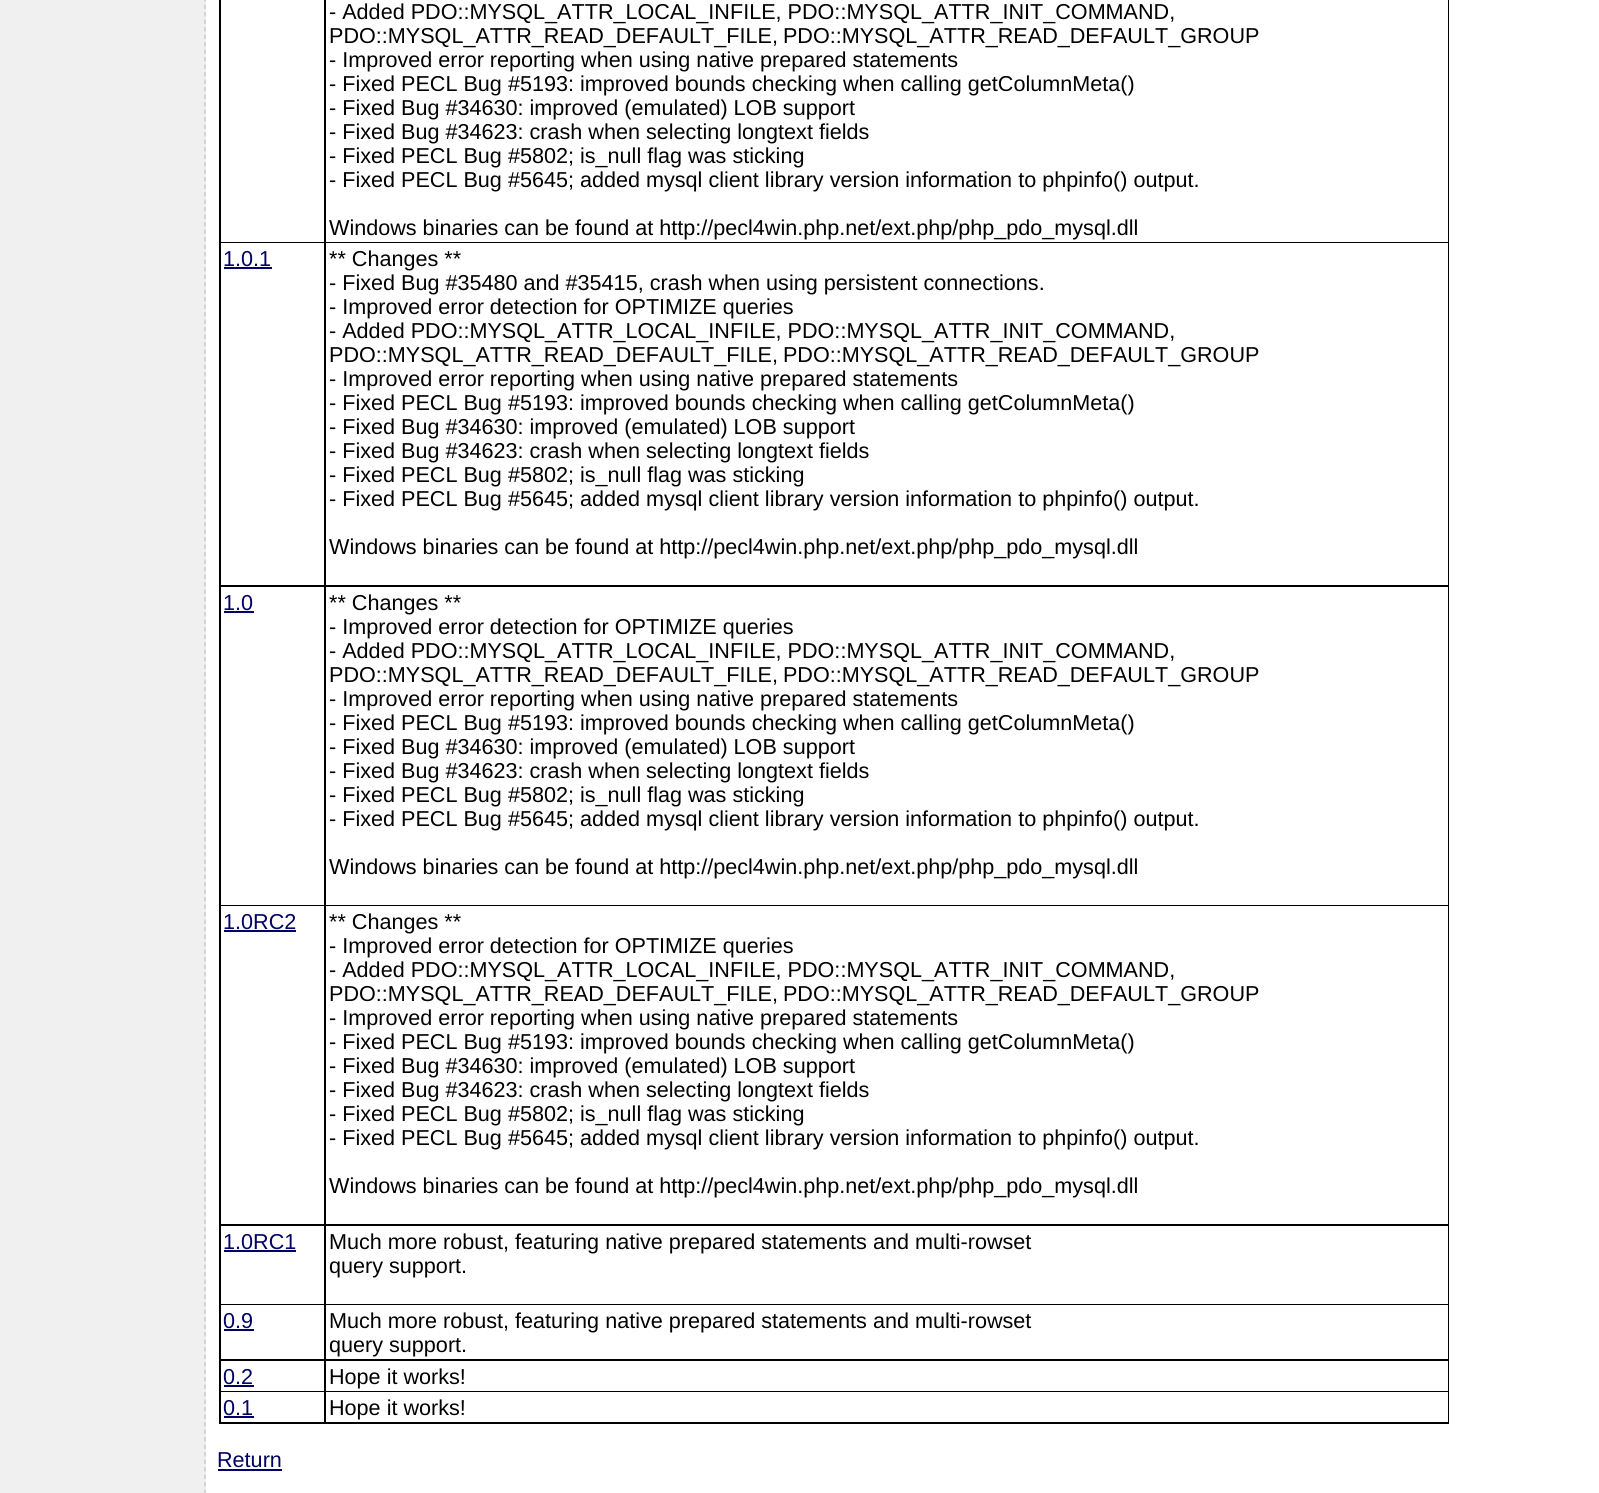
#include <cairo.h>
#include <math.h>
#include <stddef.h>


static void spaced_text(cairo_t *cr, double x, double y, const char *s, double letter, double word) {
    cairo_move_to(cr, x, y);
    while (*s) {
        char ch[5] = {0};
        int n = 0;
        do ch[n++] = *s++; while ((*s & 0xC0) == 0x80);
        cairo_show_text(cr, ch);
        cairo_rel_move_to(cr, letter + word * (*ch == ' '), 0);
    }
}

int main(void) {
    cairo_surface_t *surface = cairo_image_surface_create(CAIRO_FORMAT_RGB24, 1599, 1493);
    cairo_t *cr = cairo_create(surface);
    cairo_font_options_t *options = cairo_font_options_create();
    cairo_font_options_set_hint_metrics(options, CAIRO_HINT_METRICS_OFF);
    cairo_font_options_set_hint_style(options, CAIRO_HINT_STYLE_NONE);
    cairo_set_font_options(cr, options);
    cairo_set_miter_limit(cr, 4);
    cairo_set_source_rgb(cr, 1, 1, 1);
    cairo_paint(cr);
    cairo_set_source_rgb(cr, 0.941, 0.941, 0.941);
    cairo_rectangle(cr, 0, 0, 206, 1493);
    cairo_fill(cr);
    cairo_new_path(cr);
    cairo_move_to(cr, 205, -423);
    cairo_line_to(cr, 205, 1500);
    cairo_set_source_rgb(cr, 0.8, 0.8, 0.8);
    cairo_set_line_width(cr, 1.5);
    cairo_set_dash(cr, (double[]){4.5, 3}, 2, 0);
    cairo_stroke(cr);
    cairo_set_source_rgb(cr, 0, 0, 0);
    cairo_rectangle(cr, 219, 0, 1230, 1424);
    cairo_fill(cr);
    cairo_set_source_rgb(cr, 1, 1, 1);
    cairo_rectangle(cr, 221, 0, 103, 242);
    cairo_fill(cr);
    cairo_rectangle(cr, 326, 0, 1122, 242);
    cairo_fill(cr);
    cairo_select_font_face(cr, "Liberation Sans", CAIRO_FONT_SLANT_NORMAL, CAIRO_FONT_WEIGHT_NORMAL);
    cairo_set_font_size(cr, 21.6);
    cairo_set_source_rgb(cr, 0, 0, 0);
    cairo_move_to(cr, 329, 19);
    cairo_show_text(cr, "- Added PDO::MYSQL_ATTR_LOCAL_INFILE, PDO::MYSQL_ATTR_INIT_COMMAND,");
    spaced_text(cr, 329, 43, "PDO::MYSQL_ATTR_READ_DEFAULT_FILE, PDO::MYSQL_ATTR_READ_DEFAULT_GROUP", 0, -1);
    cairo_move_to(cr, 329, 67);
    cairo_show_text(cr, "- Improved error reporting when using native prepared statements");
    cairo_move_to(cr, 329, 91);
    cairo_show_text(cr, "- Fixed PECL Bug #5193: improved bounds checking when calling getColumnMeta()");
    cairo_move_to(cr, 329, 115);
    cairo_show_text(cr, "- Fixed Bug #34630: improved (emulated) LOB support");
    cairo_move_to(cr, 329, 139);
    cairo_show_text(cr, "- Fixed Bug #34623: crash when selecting longtext fields");
    cairo_move_to(cr, 329, 163);
    cairo_show_text(cr, "- Fixed PECL Bug #5802; is_null flag was sticking");
    cairo_move_to(cr, 329, 187);
    cairo_show_text(cr, "- Fixed PECL Bug #5645; added mysql client library version information to phpinfo() output.");
    cairo_move_to(cr, 329, 235);
    cairo_show_text(cr, "Windows binaries can be found at http://pecl4win.php.net/ext.php/php_pdo_mysql.dll");
    cairo_set_source_rgb(cr, 1, 1, 1);
    cairo_rectangle(cr, 221, 243, 103, 342);
    cairo_fill(cr);
    cairo_set_source_rgb(cr, 0, 0, 0.4);
    cairo_move_to(cr, 223, 266);
    cairo_show_text(cr, "1.0.1");
    cairo_rectangle(cr, 224, 267, 48, 2);
    cairo_fill(cr);
    cairo_set_source_rgb(cr, 1, 1, 1);
    cairo_rectangle(cr, 326, 243, 1122, 342);
    cairo_fill(cr);
    cairo_set_source_rgb(cr, 0, 0, 0);
    cairo_move_to(cr, 329, 266);
    cairo_show_text(cr, "** Changes **");
    cairo_move_to(cr, 329, 290);
    cairo_show_text(cr, "- Fixed Bug #35480 and #35415, crash when using persistent connections.");
    cairo_move_to(cr, 329, 314);
    cairo_show_text(cr, "- Improved error detection for OPTIMIZE queries");
    cairo_move_to(cr, 329, 338);
    cairo_show_text(cr, "- Added PDO::MYSQL_ATTR_LOCAL_INFILE, PDO::MYSQL_ATTR_INIT_COMMAND,");
    spaced_text(cr, 329, 362, "PDO::MYSQL_ATTR_READ_DEFAULT_FILE, PDO::MYSQL_ATTR_READ_DEFAULT_GROUP", 0, -1);
    cairo_move_to(cr, 329, 386);
    cairo_show_text(cr, "- Improved error reporting when using native prepared statements");
    cairo_move_to(cr, 329, 410);
    cairo_show_text(cr, "- Fixed PECL Bug #5193: improved bounds checking when calling getColumnMeta()");
    cairo_move_to(cr, 329, 434);
    cairo_show_text(cr, "- Fixed Bug #34630: improved (emulated) LOB support");
    cairo_move_to(cr, 329, 458);
    cairo_show_text(cr, "- Fixed Bug #34623: crash when selecting longtext fields");
    cairo_move_to(cr, 329, 482);
    cairo_show_text(cr, "- Fixed PECL Bug #5802; is_null flag was sticking");
    cairo_move_to(cr, 329, 506);
    cairo_show_text(cr, "- Fixed PECL Bug #5645; added mysql client library version information to phpinfo() output.");
    cairo_move_to(cr, 329, 554);
    cairo_show_text(cr, "Windows binaries can be found at http://pecl4win.php.net/ext.php/php_pdo_mysql.dll");
    cairo_set_source_rgb(cr, 1, 1, 1);
    cairo_rectangle(cr, 221, 587, 103, 318);
    cairo_fill(cr);
    cairo_set_source_rgb(cr, 0, 0, 0.4);
    cairo_move_to(cr, 223, 610);
    cairo_show_text(cr, "1.0");
    cairo_rectangle(cr, 224, 611, 30, 2);
    cairo_fill(cr);
    cairo_set_source_rgb(cr, 1, 1, 1);
    cairo_rectangle(cr, 326, 587, 1122, 318);
    cairo_fill(cr);
    cairo_set_source_rgb(cr, 0, 0, 0);
    cairo_move_to(cr, 329, 610);
    cairo_show_text(cr, "** Changes **");
    cairo_move_to(cr, 329, 634);
    cairo_show_text(cr, "- Improved error detection for OPTIMIZE queries");
    cairo_move_to(cr, 329, 658);
    cairo_show_text(cr, "- Added PDO::MYSQL_ATTR_LOCAL_INFILE, PDO::MYSQL_ATTR_INIT_COMMAND,");
    spaced_text(cr, 329, 682, "PDO::MYSQL_ATTR_READ_DEFAULT_FILE, PDO::MYSQL_ATTR_READ_DEFAULT_GROUP", 0, -1);
    cairo_move_to(cr, 329, 706);
    cairo_show_text(cr, "- Improved error reporting when using native prepared statements");
    cairo_move_to(cr, 329, 730);
    cairo_show_text(cr, "- Fixed PECL Bug #5193: improved bounds checking when calling getColumnMeta()");
    cairo_move_to(cr, 329, 754);
    cairo_show_text(cr, "- Fixed Bug #34630: improved (emulated) LOB support");
    cairo_move_to(cr, 329, 778);
    cairo_show_text(cr, "- Fixed Bug #34623: crash when selecting longtext fields");
    cairo_move_to(cr, 329, 802);
    cairo_show_text(cr, "- Fixed PECL Bug #5802; is_null flag was sticking");
    cairo_move_to(cr, 329, 826);
    cairo_show_text(cr, "- Fixed PECL Bug #5645; added mysql client library version information to phpinfo() output.");
    cairo_move_to(cr, 329, 874);
    cairo_show_text(cr, "Windows binaries can be found at http://pecl4win.php.net/ext.php/php_pdo_mysql.dll");
    cairo_set_source_rgb(cr, 1, 1, 1);
    cairo_rectangle(cr, 221, 906, 103, 318);
    cairo_fill(cr);
    cairo_set_source_rgb(cr, 0, 0, 0.4);
    cairo_move_to(cr, 223, 929);
    cairo_show_text(cr, "1.0RC2");
    cairo_rectangle(cr, 224, 930, 72, 2);
    cairo_fill(cr);
    cairo_set_source_rgb(cr, 1, 1, 1);
    cairo_rectangle(cr, 326, 906, 1122, 318);
    cairo_fill(cr);
    cairo_set_source_rgb(cr, 0, 0, 0);
    cairo_move_to(cr, 329, 929);
    cairo_show_text(cr, "** Changes **");
    cairo_move_to(cr, 329, 953);
    cairo_show_text(cr, "- Improved error detection for OPTIMIZE queries");
    cairo_move_to(cr, 329, 977);
    cairo_show_text(cr, "- Added PDO::MYSQL_ATTR_LOCAL_INFILE, PDO::MYSQL_ATTR_INIT_COMMAND,");
    spaced_text(cr, 329, 1001, "PDO::MYSQL_ATTR_READ_DEFAULT_FILE, PDO::MYSQL_ATTR_READ_DEFAULT_GROUP", 0, -1);
    cairo_move_to(cr, 329, 1025);
    cairo_show_text(cr, "- Improved error reporting when using native prepared statements");
    cairo_move_to(cr, 329, 1049);
    cairo_show_text(cr, "- Fixed PECL Bug #5193: improved bounds checking when calling getColumnMeta()");
    cairo_move_to(cr, 329, 1073);
    cairo_show_text(cr, "- Fixed Bug #34630: improved (emulated) LOB support");
    cairo_move_to(cr, 329, 1097);
    cairo_show_text(cr, "- Fixed Bug #34623: crash when selecting longtext fields");
    cairo_move_to(cr, 329, 1121);
    cairo_show_text(cr, "- Fixed PECL Bug #5802; is_null flag was sticking");
    cairo_move_to(cr, 329, 1145);
    cairo_show_text(cr, "- Fixed PECL Bug #5645; added mysql client library version information to phpinfo() output.");
    cairo_move_to(cr, 329, 1193);
    cairo_show_text(cr, "Windows binaries can be found at http://pecl4win.php.net/ext.php/php_pdo_mysql.dll");
    cairo_set_source_rgb(cr, 1, 1, 1);
    cairo_rectangle(cr, 221, 1226, 103, 78);
    cairo_fill(cr);
    cairo_set_source_rgb(cr, 0, 0, 0.4);
    cairo_move_to(cr, 223, 1249);
    cairo_show_text(cr, "1.0RC1");
    cairo_rectangle(cr, 224, 1250, 72, 2);
    cairo_fill(cr);
    cairo_set_source_rgb(cr, 1, 1, 1);
    cairo_rectangle(cr, 326, 1226, 1122, 78);
    cairo_fill(cr);
    cairo_set_source_rgb(cr, 0, 0, 0);
    cairo_move_to(cr, 329, 1249);
    cairo_show_text(cr, "Much more robust, featuring native prepared statements and multi-rowset");
    cairo_move_to(cr, 329, 1273);
    cairo_show_text(cr, "query support.");
    cairo_set_source_rgb(cr, 1, 1, 1);
    cairo_rectangle(cr, 221, 1305, 103, 54);
    cairo_fill(cr);
    cairo_set_source_rgb(cr, 0, 0, 0.4);
    cairo_move_to(cr, 223, 1328);
    cairo_show_text(cr, "0.9");
    cairo_rectangle(cr, 224, 1329, 30, 2);
    cairo_fill(cr);
    cairo_set_source_rgb(cr, 1, 1, 1);
    cairo_rectangle(cr, 326, 1305, 1122, 54);
    cairo_fill(cr);
    cairo_set_source_rgb(cr, 0, 0, 0);
    cairo_move_to(cr, 329, 1328);
    cairo_show_text(cr, "Much more robust, featuring native prepared statements and multi-rowset");
    cairo_move_to(cr, 329, 1352);
    cairo_show_text(cr, "query support.");
    cairo_set_source_rgb(cr, 1, 1, 1);
    cairo_rectangle(cr, 221, 1361, 103, 30);
    cairo_fill(cr);
    cairo_set_source_rgb(cr, 0, 0, 0.4);
    cairo_move_to(cr, 223, 1384);
    cairo_show_text(cr, "0.2");
    cairo_rectangle(cr, 224, 1385, 30, 2);
    cairo_fill(cr);
    cairo_set_source_rgb(cr, 1, 1, 1);
    cairo_rectangle(cr, 326, 1361, 1122, 30);
    cairo_fill(cr);
    cairo_set_source_rgb(cr, 0, 0, 0);
    cairo_move_to(cr, 329, 1384);
    cairo_show_text(cr, "Hope it works!");
    cairo_set_source_rgb(cr, 1, 1, 1);
    cairo_rectangle(cr, 221, 1392, 103, 30);
    cairo_fill(cr);
    cairo_set_source_rgb(cr, 0, 0, 0.4);
    cairo_move_to(cr, 223, 1415);
    cairo_show_text(cr, "0.1");
    cairo_rectangle(cr, 224, 1416, 30, 2);
    cairo_fill(cr);
    cairo_set_source_rgb(cr, 1, 1, 1);
    cairo_rectangle(cr, 326, 1392, 1122, 30);
    cairo_fill(cr);
    cairo_set_source_rgb(cr, 0, 0, 0);
    cairo_move_to(cr, 329, 1415);
    cairo_show_text(cr, "Hope it works!");
    cairo_set_source_rgb(cr, 0, 0, 0.4);
    cairo_move_to(cr, 217, 1467);
    cairo_show_text(cr, "Return");
    cairo_rectangle(cr, 218, 1469, 64, 2);
    cairo_fill(cr);
    cairo_surface_write_to_png(surface, "page.png");
    cairo_font_options_destroy(options);
    cairo_destroy(cr);
    cairo_surface_destroy(surface);
    return 0;
}
